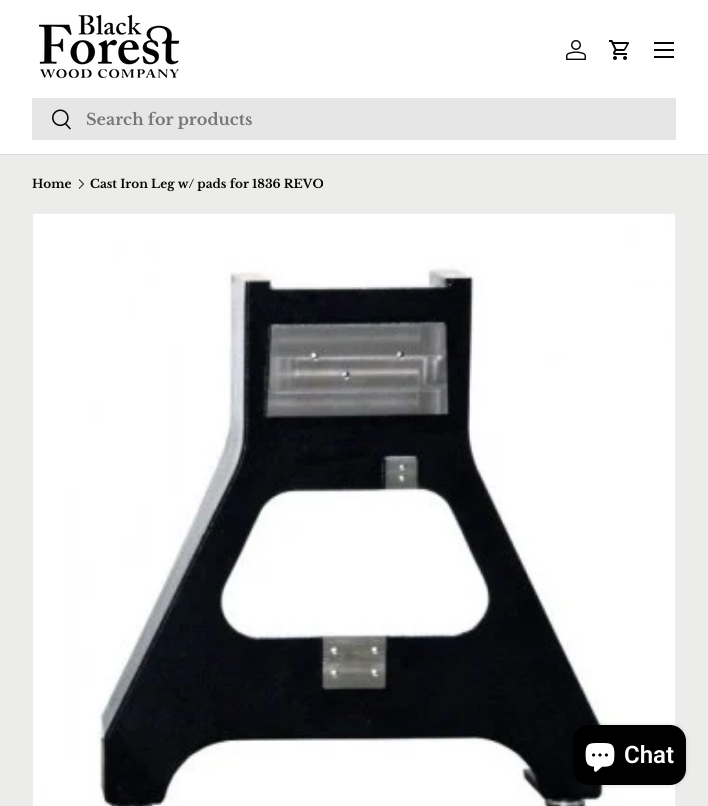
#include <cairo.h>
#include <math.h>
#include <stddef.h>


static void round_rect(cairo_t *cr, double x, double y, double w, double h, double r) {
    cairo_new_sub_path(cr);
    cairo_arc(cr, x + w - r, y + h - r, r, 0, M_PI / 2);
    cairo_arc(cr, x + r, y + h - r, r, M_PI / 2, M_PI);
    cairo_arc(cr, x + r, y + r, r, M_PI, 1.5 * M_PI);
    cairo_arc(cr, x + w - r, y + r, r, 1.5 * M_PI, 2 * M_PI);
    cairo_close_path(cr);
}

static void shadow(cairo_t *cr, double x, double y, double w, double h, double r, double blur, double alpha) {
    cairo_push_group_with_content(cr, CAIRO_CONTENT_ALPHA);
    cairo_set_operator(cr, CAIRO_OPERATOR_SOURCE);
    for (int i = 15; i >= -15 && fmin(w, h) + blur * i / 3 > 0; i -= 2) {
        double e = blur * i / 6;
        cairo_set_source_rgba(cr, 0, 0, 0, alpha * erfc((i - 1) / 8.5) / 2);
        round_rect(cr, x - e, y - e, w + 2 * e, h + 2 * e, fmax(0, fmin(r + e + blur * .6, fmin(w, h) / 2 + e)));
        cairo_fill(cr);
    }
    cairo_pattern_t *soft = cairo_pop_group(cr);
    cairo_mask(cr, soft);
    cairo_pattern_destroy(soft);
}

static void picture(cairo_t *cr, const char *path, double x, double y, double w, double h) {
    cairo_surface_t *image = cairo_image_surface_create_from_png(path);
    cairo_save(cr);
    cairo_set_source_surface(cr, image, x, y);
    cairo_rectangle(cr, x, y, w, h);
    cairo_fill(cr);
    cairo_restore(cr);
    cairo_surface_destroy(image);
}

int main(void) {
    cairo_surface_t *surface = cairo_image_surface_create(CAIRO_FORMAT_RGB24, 708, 806);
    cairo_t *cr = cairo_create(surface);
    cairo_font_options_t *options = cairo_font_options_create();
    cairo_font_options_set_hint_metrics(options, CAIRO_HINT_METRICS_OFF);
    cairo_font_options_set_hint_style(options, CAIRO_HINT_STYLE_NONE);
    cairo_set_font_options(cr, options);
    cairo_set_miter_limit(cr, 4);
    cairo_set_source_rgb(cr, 0.925, 0.922, 0.918);
    cairo_paint(cr);
    cairo_set_source_rgb(cr, 1, 1, 1);
    cairo_rectangle(cr, 0, 0, 708, 154);
    cairo_fill(cr);
    cairo_set_source_rgb(cr, 0.855, 0.855, 0.855);
    cairo_rectangle(cr, 0, 154, 708, 1);
    cairo_fill(cr);
    picture(cr, "img1.png", 39, 14, 141, 65);
    picture(cr, "img2.png", 566, 40, 20, 20);
    picture(cr, "img3.png", 609, 40, 20, 20);
    cairo_set_source_rgb(cr, 0.027, 0.027, 0.027);
    cairo_rectangle(cr, 654, 42, 20, 2);
    cairo_fill(cr);
    cairo_rectangle(cr, 654, 56, 20, 2);
    cairo_fill(cr);
    cairo_rectangle(cr, 654, 49, 20, 2);
    cairo_fill(cr);
    cairo_set_source_rgb(cr, 0.902, 0.902, 0.902);
    cairo_rectangle(cr, 32, 98, 644, 42);
    cairo_fill(cr);
    picture(cr, "img4.png", 52, 109, 19, 21);
    cairo_select_font_face(cr, "Libre Baskerville", CAIRO_FONT_SLANT_NORMAL, CAIRO_FONT_WEIGHT_BOLD);
    cairo_set_font_size(cr, 16);
    cairo_set_source_rgb(cr, 0.467, 0.467, 0.467);
    cairo_move_to(cr, 86, 125);
    cairo_show_text(cr, "Search for products");
    cairo_set_font_size(cr, 12);
    cairo_set_source_rgb(cr, 0.035, 0.012, 0.008);
    cairo_move_to(cr, 32, 188);
    cairo_show_text(cr, "Home");
    cairo_new_path(cr);
    cairo_move_to(cr, 79, 179.5);
    cairo_line_to(cr, 83.5, 184);
    cairo_line_to(cr, 79, 188.5);
    cairo_set_line_width(cr, 0.9);
    cairo_stroke(cr);
    cairo_move_to(cr, 90, 188);
    cairo_show_text(cr, "Cast Iron Leg w/ pads for 1836 REVO");
    cairo_rectangle(cr, 32.5, 213.5, 643, 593);
    cairo_set_source_rgb(cr, 0.933, 0.933, 0.933);
    cairo_set_line_width(cr, 1);
    cairo_stroke(cr);
    picture(cr, "img5.png", 33, 214, 642, 592);
    cairo_set_source_rgb(cr, 0, 0, 0);
    shadow(cr, 573, 725, 113, 60, 16, 2.5, 0.15);
    cairo_set_source_rgb(cr, 0, 0, 0);
    round_rect(cr, 573, 725, 113, 60, 16);
    cairo_fill(cr);
    picture(cr, "img6.png", 585, 743, 30, 29);
    cairo_select_font_face(cr, "Roboto SemiBold", CAIRO_FONT_SLANT_NORMAL, CAIRO_FONT_WEIGHT_NORMAL);
    cairo_set_font_size(cr, 24);
    cairo_set_source_rgb(cr, 1, 1, 1);
    cairo_move_to(cr, 624, 763);
    cairo_show_text(cr, "Chat");
    cairo_surface_write_to_png(surface, "page.png");
    cairo_font_options_destroy(options);
    cairo_destroy(cr);
    cairo_surface_destroy(surface);
    return 0;
}
